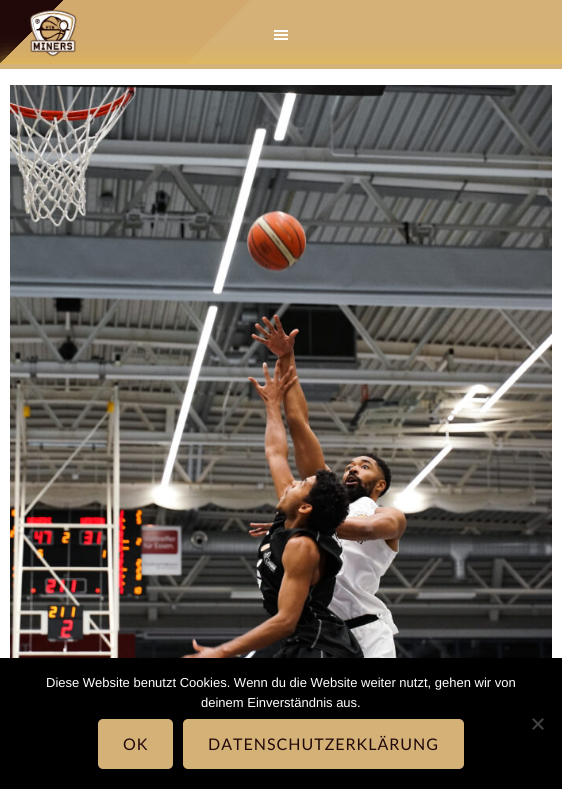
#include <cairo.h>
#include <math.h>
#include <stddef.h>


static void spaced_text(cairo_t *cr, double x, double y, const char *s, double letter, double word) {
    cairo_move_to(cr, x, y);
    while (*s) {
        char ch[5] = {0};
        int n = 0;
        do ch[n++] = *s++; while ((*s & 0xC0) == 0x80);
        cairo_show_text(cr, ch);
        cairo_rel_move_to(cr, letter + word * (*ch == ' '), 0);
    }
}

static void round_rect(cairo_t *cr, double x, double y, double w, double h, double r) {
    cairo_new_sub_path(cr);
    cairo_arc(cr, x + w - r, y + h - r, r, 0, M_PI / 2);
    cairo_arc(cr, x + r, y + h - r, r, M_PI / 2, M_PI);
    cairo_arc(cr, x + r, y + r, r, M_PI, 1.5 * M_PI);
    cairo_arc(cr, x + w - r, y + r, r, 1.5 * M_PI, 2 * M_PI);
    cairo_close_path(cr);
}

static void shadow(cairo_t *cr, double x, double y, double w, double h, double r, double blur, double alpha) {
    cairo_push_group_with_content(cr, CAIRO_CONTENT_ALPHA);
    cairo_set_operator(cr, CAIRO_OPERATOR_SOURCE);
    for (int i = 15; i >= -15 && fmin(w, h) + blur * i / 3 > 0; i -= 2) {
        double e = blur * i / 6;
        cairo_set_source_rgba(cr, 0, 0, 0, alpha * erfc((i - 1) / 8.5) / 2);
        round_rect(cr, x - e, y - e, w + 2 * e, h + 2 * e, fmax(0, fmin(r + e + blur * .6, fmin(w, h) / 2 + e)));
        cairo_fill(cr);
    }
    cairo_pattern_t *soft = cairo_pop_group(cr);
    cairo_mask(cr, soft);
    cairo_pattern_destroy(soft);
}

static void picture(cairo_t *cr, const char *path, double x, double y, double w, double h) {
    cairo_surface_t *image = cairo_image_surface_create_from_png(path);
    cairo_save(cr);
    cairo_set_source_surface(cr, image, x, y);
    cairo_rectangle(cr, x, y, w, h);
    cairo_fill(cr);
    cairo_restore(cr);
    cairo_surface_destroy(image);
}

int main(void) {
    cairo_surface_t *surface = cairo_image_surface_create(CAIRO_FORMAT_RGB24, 562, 789);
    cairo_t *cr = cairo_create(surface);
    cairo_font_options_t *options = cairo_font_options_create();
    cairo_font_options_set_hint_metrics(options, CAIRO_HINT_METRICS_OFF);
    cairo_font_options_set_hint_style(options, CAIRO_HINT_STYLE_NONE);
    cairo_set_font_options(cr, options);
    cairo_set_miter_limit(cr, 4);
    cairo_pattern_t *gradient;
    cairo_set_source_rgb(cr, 1, 1, 1);
    cairo_paint(cr);
    gradient = cairo_pattern_create_linear(124, -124, 438, 189);
    cairo_pattern_add_color_stop_rgba(gradient, 0.1, 0.129, 0.035, 0.035, 1);
    cairo_pattern_add_color_stop_rgba(gradient, 0.1, 0.824, 0.667, 0.427, 1);
    cairo_pattern_add_color_stop_rgba(gradient, 0.4, 0.824, 0.667, 0.427, 1);
    cairo_pattern_add_color_stop_rgba(gradient, 0.4, 0.831, 0.694, 0.467, 1);
    cairo_pattern_add_color_stop_rgba(gradient, 1, 0.831, 0.694, 0.467, 1);
    cairo_set_source(cr, gradient);
    cairo_pattern_destroy(gradient);
    cairo_rectangle(cr, 0, 0, 562, 64);
    cairo_fill(cr);
    picture(cr, "img2.png", 274, 30, 14, 10);
    cairo_set_source_rgb(cr, 0.906, 0.745, 0.282);
    shadow(cr, 2, 64, 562, 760, 0, 11.5, 1);
    picture(cr, "img1.png", 29, 9, 48, 48);
    cairo_set_source_rgb(cr, 1, 1, 1);
    cairo_rectangle(cr, 0, 69, 562, 589);
    cairo_fill(cr);
    cairo_set_source_rgb(cr, 0.831, 0.694, 0.467);
    cairo_rectangle(cr, 0, 64, 562, 5);
    cairo_fill(cr);
    picture(cr, "img3.png", 10, 85, 542, 573);
    cairo_set_source_rgb(cr, 0, 0, 0);
    cairo_rectangle(cr, 0, 658, 562, 131);
    cairo_fill(cr);
    cairo_select_font_face(cr, "Liberation Sans", CAIRO_FONT_SLANT_NORMAL, CAIRO_FONT_WEIGHT_NORMAL);
    cairo_set_font_size(cr, 13);
    cairo_set_source_rgb(cr, 1, 1, 1);
    cairo_move_to(cr, 46, 687);
    cairo_show_text(cr, "Diese Website benutzt Cookies. Wenn du die Website weiter nutzt, gehen wir von");
    cairo_move_to(cr, 201, 707);
    cairo_show_text(cr, "deinem Einverständnis aus.");
    cairo_set_source_rgb(cr, 0.251, 0.251, 0.251);
    cairo_new_path(cr);
    cairo_move_to(cr, 542.5, 718);
    cairo_line_to(cr, 544, 719.5);
    cairo_line_to(cr, 533.5, 730);
    cairo_line_to(cr, 532, 728.5);
    cairo_close_path(cr);
    cairo_fill(cr);
    cairo_new_path(cr);
    cairo_move_to(cr, 532, 719.5);
    cairo_line_to(cr, 533.5, 718);
    cairo_line_to(cr, 544, 728.5);
    cairo_line_to(cr, 542.5, 730);
    cairo_close_path(cr);
    cairo_fill(cr);
    cairo_set_source_rgb(cr, 0.831, 0.694, 0.467);
    round_rect(cr, 98, 719, 75, 50, 5);
    cairo_fill(cr);
    cairo_select_font_face(cr, "Lato", CAIRO_FONT_SLANT_NORMAL, CAIRO_FONT_WEIGHT_NORMAL);
    cairo_set_font_size(cr, 16);
    cairo_set_source_rgb(cr, 0.129, 0.035, 0.035);
    spaced_text(cr, 123, 750, "OK", 1, 0);
    cairo_set_source_rgb(cr, 0.831, 0.694, 0.467);
    round_rect(cr, 183, 719, 281, 50, 5);
    cairo_fill(cr);
    cairo_set_source_rgb(cr, 0.129, 0.035, 0.035);
    spaced_text(cr, 208, 750, "DATENSCHUTZERKLÄRUNG", 1, 0);
    cairo_surface_write_to_png(surface, "page.png");
    cairo_font_options_destroy(options);
    cairo_destroy(cr);
    cairo_surface_destroy(surface);
    return 0;
}
